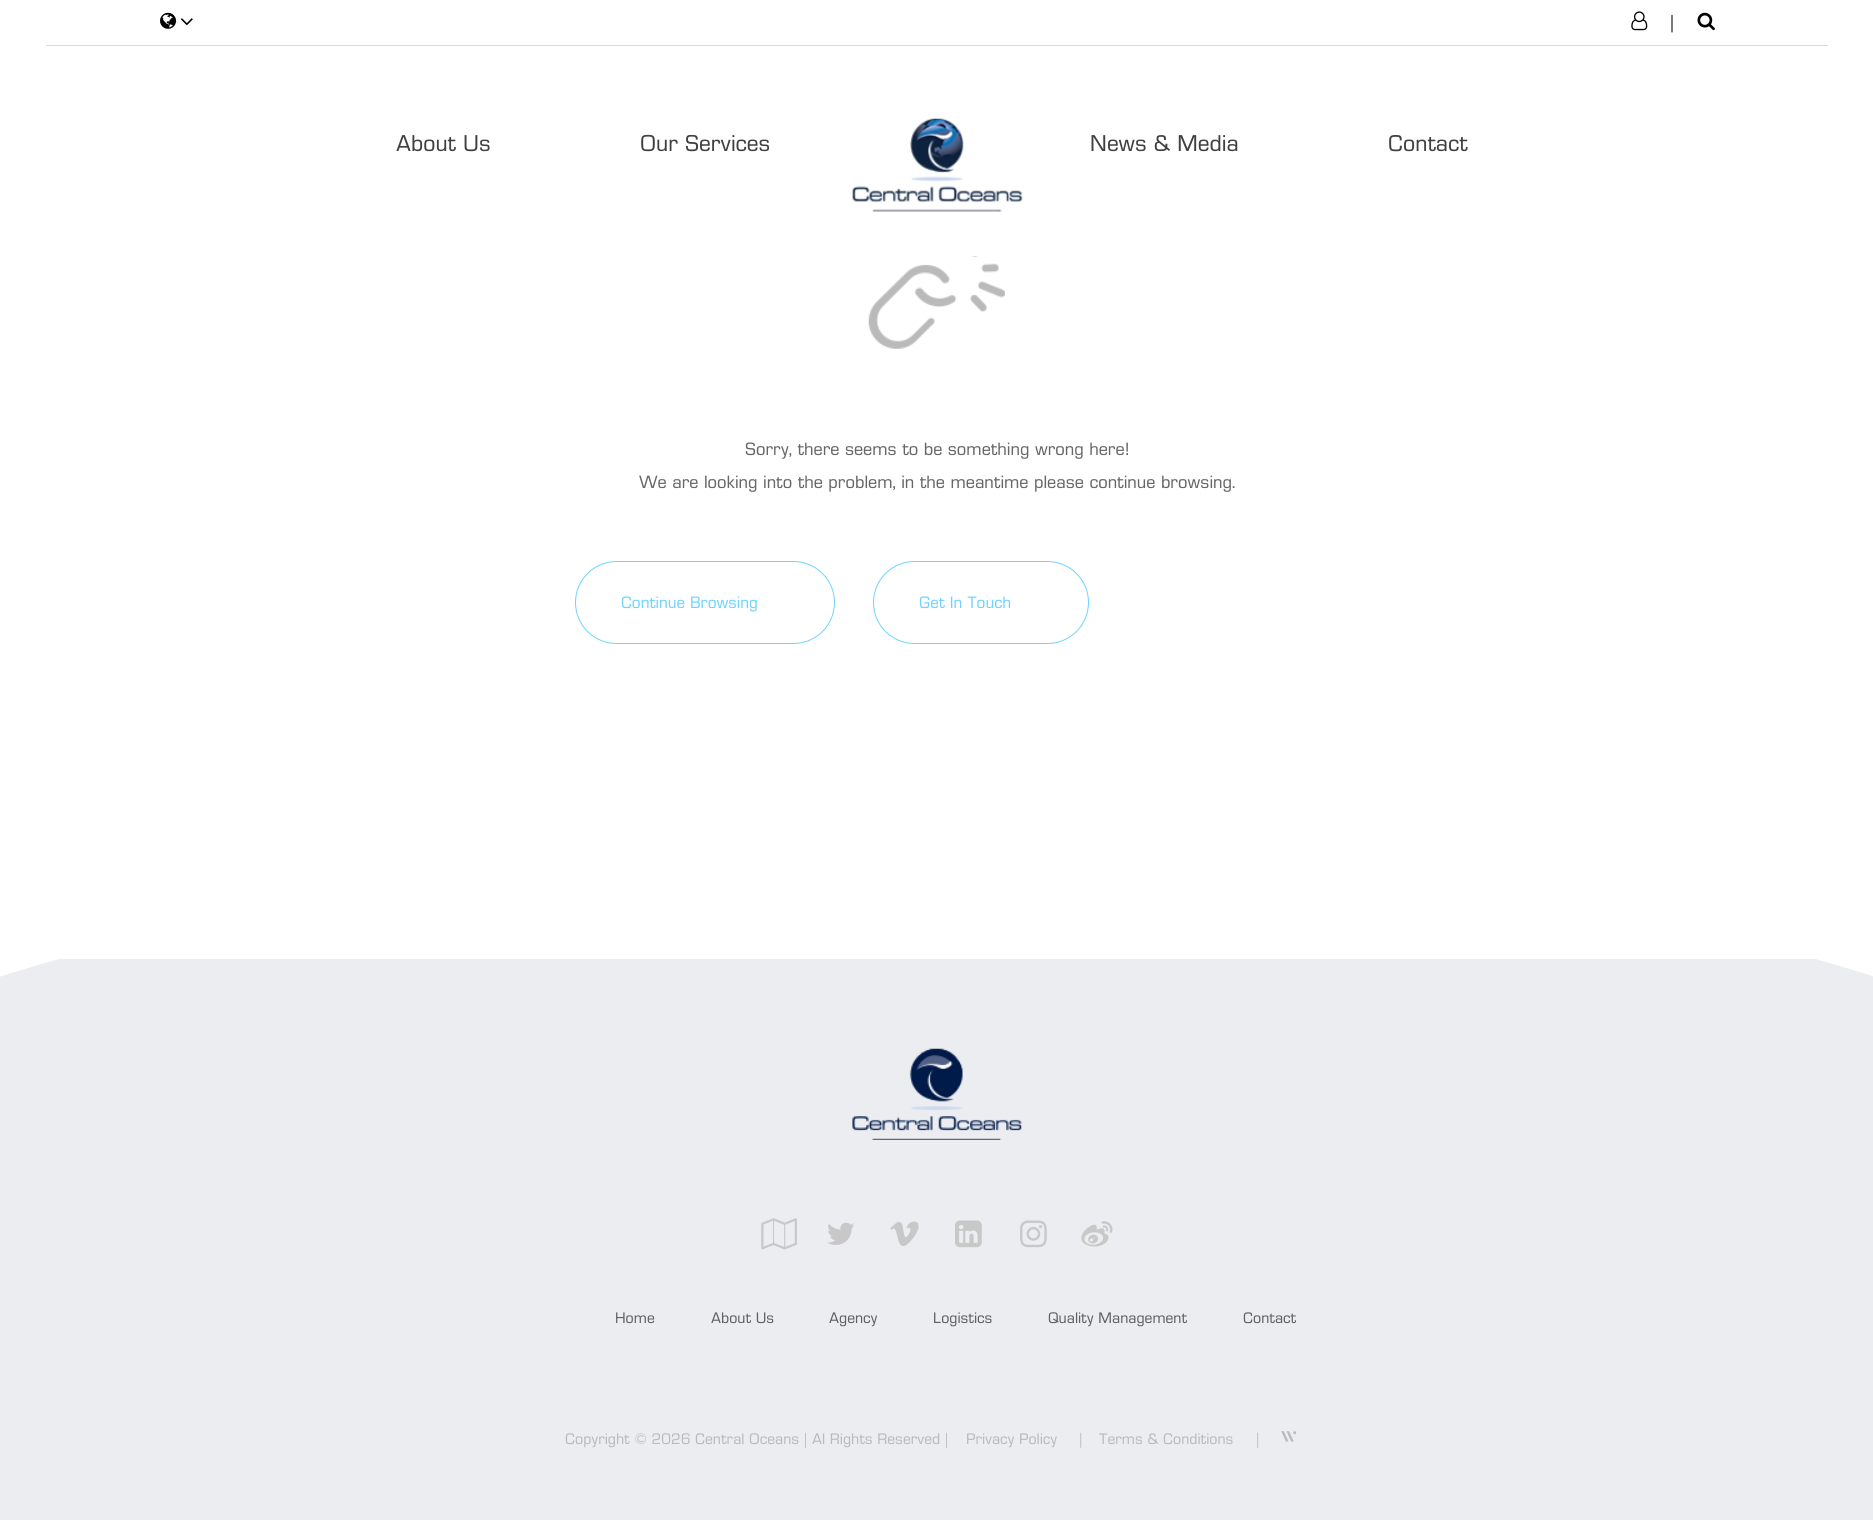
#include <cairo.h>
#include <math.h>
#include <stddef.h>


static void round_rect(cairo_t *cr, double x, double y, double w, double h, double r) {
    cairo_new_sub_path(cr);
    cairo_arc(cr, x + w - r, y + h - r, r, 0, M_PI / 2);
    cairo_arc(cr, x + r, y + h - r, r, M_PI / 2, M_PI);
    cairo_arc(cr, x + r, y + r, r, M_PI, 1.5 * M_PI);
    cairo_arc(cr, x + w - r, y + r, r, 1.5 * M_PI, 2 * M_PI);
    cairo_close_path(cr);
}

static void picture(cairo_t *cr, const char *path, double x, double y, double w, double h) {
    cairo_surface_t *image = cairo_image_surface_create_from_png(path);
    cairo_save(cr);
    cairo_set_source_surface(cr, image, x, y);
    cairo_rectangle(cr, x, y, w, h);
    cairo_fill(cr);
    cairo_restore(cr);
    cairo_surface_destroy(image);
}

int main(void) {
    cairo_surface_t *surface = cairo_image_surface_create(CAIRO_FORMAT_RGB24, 1873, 1520);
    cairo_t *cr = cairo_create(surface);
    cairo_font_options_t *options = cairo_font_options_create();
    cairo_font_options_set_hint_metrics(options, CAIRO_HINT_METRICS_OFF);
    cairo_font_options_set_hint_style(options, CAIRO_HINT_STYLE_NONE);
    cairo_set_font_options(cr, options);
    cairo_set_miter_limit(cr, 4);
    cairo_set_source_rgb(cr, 1, 1, 1);
    cairo_paint(cr);
    cairo_set_source_rgb(cr, 0.863, 0.863, 0.863);
    cairo_rectangle(cr, 46, 45, 1782, 1);
    cairo_fill(cr);
    picture(cr, "img1.png", 160, 12, 17, 17);
    picture(cr, "img2.png", 181, 18, 12, 8);
    picture(cr, "img3.png", 1631, 11, 17, 20);
    cairo_select_font_face(cr, "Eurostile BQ", CAIRO_FONT_SLANT_NORMAL, CAIRO_FONT_WEIGHT_NORMAL);
    cairo_set_font_size(cr, 17.5);
    cairo_set_source_rgb(cr, 0, 0, 0);
    cairo_move_to(cr, 1670, 28);
    cairo_show_text(cr, "|");
    picture(cr, "img4.png", 1697, 12, 18, 19);
    picture(cr, "img5.png", 852, 118, 171, 94);
    cairo_set_font_size(cr, 22.5);
    cairo_set_source_rgb(cr, 0.251, 0.251, 0.251);
    cairo_move_to(cr, 396, 151);
    cairo_show_text(cr, "About Us");
    cairo_move_to(cr, 640, 151);
    cairo_show_text(cr, "Our Services");
    cairo_move_to(cr, 1090, 151);
    cairo_show_text(cr, "News & Media");
    cairo_move_to(cr, 1388, 151);
    cairo_show_text(cr, "Contact");
    picture(cr, "img6.png", 868, 256, 137, 93);
    cairo_set_font_size(cr, 17.5);
    cairo_set_source_rgb(cr, 0.404, 0.404, 0.404);
    cairo_move_to(cr, 745, 455);
    cairo_show_text(cr, "Sorry, there seems to be something wrong here!");
    cairo_move_to(cr, 639, 488);
    cairo_show_text(cr, "We are looking into the problem, in the meantime please continue browsing.");
    round_rect(cr, 575.5, 561.5, 259, 82, 41);
    cairo_set_source_rgb(cr, 0.431, 0.831, 0.996);
    cairo_set_line_width(cr, 1);
    cairo_stroke(cr);
    cairo_set_font_size(cr, 16.25);
    cairo_move_to(cr, 621, 608);
    cairo_show_text(cr, "Continue Browsing");
    round_rect(cr, 873.5, 561.5, 215, 82, 41);
    cairo_stroke(cr);
    cairo_move_to(cr, 919, 608);
    cairo_show_text(cr, "Get In Touch");
    cairo_set_source_rgb(cr, 0.922, 0.929, 0.941);
    cairo_rectangle(cr, 0, 959, 1873, 561);
    cairo_fill(cr);
    cairo_save(cr);
    cairo_rectangle(cr, 0, 704, 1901, 282);
    cairo_clip(cr);
    cairo_set_source_rgb(cr, 1, 1, 1);
    cairo_new_path(cr);
    cairo_move_to(cr, 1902, 986);
    cairo_curve_to(cr, 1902, 986, 1516, 845, 937, 845);
    cairo_curve_to(cr, 358, 845, -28, 986, -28, 986);
    cairo_line_to(cr, -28, 700);
    cairo_line_to(cr, 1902, 700);
    cairo_line_to(cr, 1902, 984);
    cairo_close_path(cr);
    cairo_fill(cr);
    cairo_restore(cr);
    picture(cr, "img7.png", 852, 1048, 170, 92);
    picture(cr, "img8.png", 761, 1218, 36, 32);
    picture(cr, "img9.png", 827, 1222, 28, 23);
    picture(cr, "img10.png", 890, 1221, 29, 25);
    picture(cr, "img11.png", 955, 1220, 27, 28);
    picture(cr, "img12.png", 1020, 1220, 27, 28);
    picture(cr, "img13.png", 1081, 1221, 32, 26);
    cairo_set_font_size(cr, 15);
    cairo_set_source_rgb(cr, 0.376, 0.376, 0.376);
    cairo_move_to(cr, 615, 1323);
    cairo_show_text(cr, "Home");
    cairo_move_to(cr, 711, 1323);
    cairo_show_text(cr, "About Us");
    cairo_move_to(cr, 829, 1323);
    cairo_show_text(cr, "Agency");
    cairo_move_to(cr, 933, 1323);
    cairo_show_text(cr, "Logistics");
    cairo_move_to(cr, 1048, 1323);
    cairo_show_text(cr, "Quality Management");
    cairo_move_to(cr, 1243, 1323);
    cairo_show_text(cr, "Contact");
    cairo_set_source_rgb(cr, 0.729, 0.729, 0.729);
    cairo_move_to(cr, 565, 1444);
    cairo_show_text(cr, "Copyright © 2026 Central Oceans | Al Rights Reserved |");
    cairo_move_to(cr, 966, 1444);
    cairo_show_text(cr, "Privacy Policy");
    cairo_move_to(cr, 1079, 1444);
    cairo_show_text(cr, "|");
    cairo_move_to(cr, 1099, 1444);
    cairo_show_text(cr, "Terms & Conditions");
    cairo_move_to(cr, 1256, 1444);
    cairo_show_text(cr, "|");
    picture(cr, "img14.png", 1281, 1431, 15, 11);
    cairo_surface_write_to_png(surface, "page.png");
    cairo_font_options_destroy(options);
    cairo_destroy(cr);
    cairo_surface_destroy(surface);
    return 0;
}
